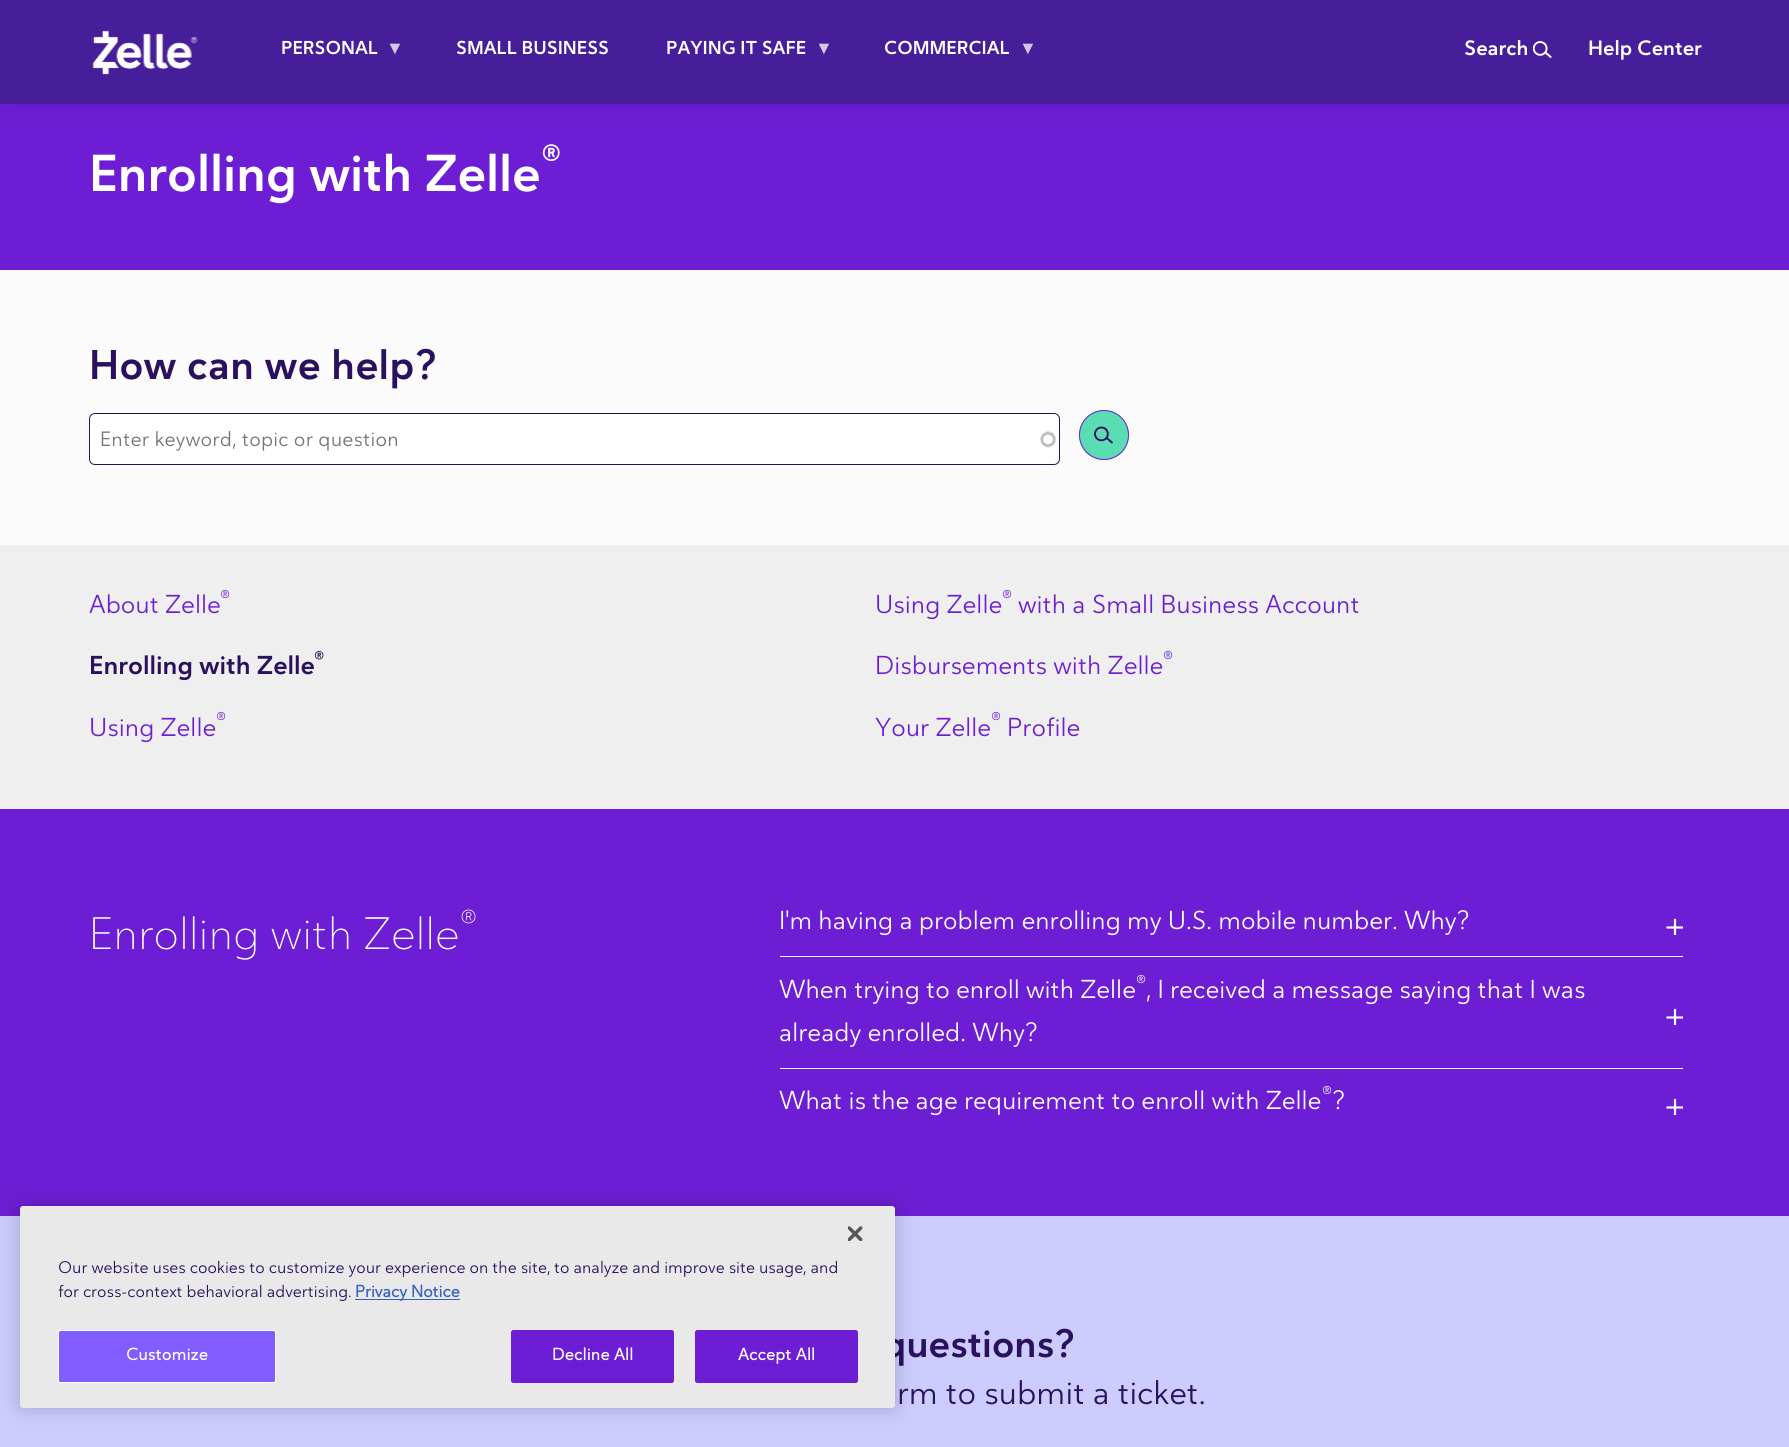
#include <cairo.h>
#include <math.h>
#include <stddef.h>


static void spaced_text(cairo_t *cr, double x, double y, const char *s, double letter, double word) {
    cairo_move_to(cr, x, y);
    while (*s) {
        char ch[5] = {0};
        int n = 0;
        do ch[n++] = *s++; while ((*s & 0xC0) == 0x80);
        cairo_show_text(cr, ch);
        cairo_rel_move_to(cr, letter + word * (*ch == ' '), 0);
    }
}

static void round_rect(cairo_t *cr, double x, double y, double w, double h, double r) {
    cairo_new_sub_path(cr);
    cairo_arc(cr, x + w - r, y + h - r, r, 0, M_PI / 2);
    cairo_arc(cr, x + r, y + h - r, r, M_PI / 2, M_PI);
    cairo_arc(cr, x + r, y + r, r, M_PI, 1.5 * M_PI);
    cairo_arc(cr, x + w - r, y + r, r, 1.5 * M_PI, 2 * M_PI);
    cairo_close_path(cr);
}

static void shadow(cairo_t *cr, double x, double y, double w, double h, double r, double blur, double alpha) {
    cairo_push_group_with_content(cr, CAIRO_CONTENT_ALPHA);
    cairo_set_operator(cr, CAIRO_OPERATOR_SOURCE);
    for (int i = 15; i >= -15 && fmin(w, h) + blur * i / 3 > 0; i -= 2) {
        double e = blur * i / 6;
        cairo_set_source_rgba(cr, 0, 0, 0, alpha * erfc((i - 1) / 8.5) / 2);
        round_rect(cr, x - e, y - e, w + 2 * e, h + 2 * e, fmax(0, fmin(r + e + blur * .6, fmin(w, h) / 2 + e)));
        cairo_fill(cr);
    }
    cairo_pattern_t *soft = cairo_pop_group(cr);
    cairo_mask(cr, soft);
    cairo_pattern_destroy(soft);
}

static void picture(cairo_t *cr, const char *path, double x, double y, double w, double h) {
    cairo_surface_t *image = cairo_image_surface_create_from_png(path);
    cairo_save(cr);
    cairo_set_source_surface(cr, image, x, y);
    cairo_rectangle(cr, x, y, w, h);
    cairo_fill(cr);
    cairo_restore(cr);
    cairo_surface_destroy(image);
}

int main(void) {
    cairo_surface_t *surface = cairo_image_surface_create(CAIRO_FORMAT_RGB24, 1789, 1447);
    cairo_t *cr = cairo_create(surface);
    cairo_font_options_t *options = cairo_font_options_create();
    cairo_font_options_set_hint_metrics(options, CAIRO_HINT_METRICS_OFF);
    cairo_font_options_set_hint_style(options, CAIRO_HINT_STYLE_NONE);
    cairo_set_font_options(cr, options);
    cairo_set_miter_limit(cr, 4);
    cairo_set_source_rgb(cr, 0.427, 0.118, 0.831);
    cairo_paint(cr);
    cairo_set_source_rgb(cr, 0, 0, 0);
    shadow(cr, 9, 0, 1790, 104, 0, 10, 0.12);
    cairo_set_source_rgb(cr, 0.278, 0.118, 0.6);
    cairo_rectangle(cr, 0, 0, 1789, 104);
    cairo_fill(cr);
    picture(cr, "img1.png", 92, 30, 106, 45);
    cairo_select_font_face(cr, "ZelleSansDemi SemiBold", CAIRO_FONT_SLANT_NORMAL, CAIRO_FONT_WEIGHT_NORMAL);
    cairo_set_font_size(cr, 18);
    cairo_set_source_rgb(cr, 1, 1, 1);
    cairo_move_to(cr, 281, 54);
    cairo_show_text(cr, "PERSONAL");
    cairo_select_font_face(cr, "Liberation Serif", CAIRO_FONT_SLANT_NORMAL, CAIRO_FONT_WEIGHT_NORMAL);
    cairo_set_source_rgb(cr, 0.82, 0.78, 0.902);
    cairo_move_to(cr, 386, 54);
    cairo_show_text(cr, "▼");
    cairo_select_font_face(cr, "ZelleSansDemi SemiBold", CAIRO_FONT_SLANT_NORMAL, CAIRO_FONT_WEIGHT_NORMAL);
    cairo_set_source_rgb(cr, 1, 1, 1);
    cairo_move_to(cr, 456, 54);
    cairo_show_text(cr, "SMALL BUSINESS");
    cairo_move_to(cr, 666, 54);
    cairo_show_text(cr, "PAYING IT SAFE");
    cairo_select_font_face(cr, "Liberation Serif", CAIRO_FONT_SLANT_NORMAL, CAIRO_FONT_WEIGHT_NORMAL);
    cairo_set_source_rgb(cr, 0.82, 0.78, 0.902);
    cairo_move_to(cr, 815, 54);
    cairo_show_text(cr, "▼");
    cairo_select_font_face(cr, "ZelleSansDemi SemiBold", CAIRO_FONT_SLANT_NORMAL, CAIRO_FONT_WEIGHT_NORMAL);
    cairo_set_source_rgb(cr, 1, 1, 1);
    cairo_move_to(cr, 884, 54);
    cairo_show_text(cr, "COMMERCIAL");
    cairo_select_font_face(cr, "Liberation Serif", CAIRO_FONT_SLANT_NORMAL, CAIRO_FONT_WEIGHT_NORMAL);
    cairo_set_source_rgb(cr, 0.82, 0.78, 0.902);
    cairo_move_to(cr, 1019, 54);
    cairo_show_text(cr, "▼");
    cairo_select_font_face(cr, "ZelleSansDemi SemiBold", CAIRO_FONT_SLANT_NORMAL, CAIRO_FONT_WEIGHT_NORMAL);
    cairo_set_font_size(cr, 20);
    cairo_set_source_rgb(cr, 1, 1, 1);
    cairo_move_to(cr, 1464, 55);
    cairo_show_text(cr, "Search");
    picture(cr, "img2.png", 1533, 41, 19, 18);
    cairo_move_to(cr, 1588, 55);
    cairo_show_text(cr, "Help Center");
    cairo_set_font_size(cr, 50);
    cairo_move_to(cr, 89, 191);
    cairo_show_text(cr, "Enrolling with Zelle");
    cairo_set_font_size(cr, 37.5);
    cairo_move_to(cr, 541, 172);
    cairo_show_text(cr, "®");
    cairo_set_source_rgb(cr, 0.984, 0.984, 0.984);
    cairo_rectangle(cr, 0, 270, 1789, 275);
    cairo_fill(cr);
    cairo_set_font_size(cr, 40);
    cairo_set_source_rgb(cr, 0.165, 0.063, 0.373);
    spaced_text(cr, 89, 379, "How can we help?", 0.4, 0);
    cairo_set_source_rgb(cr, 1, 1, 1);
    round_rect(cr, 89, 413, 971, 52, 6);
    cairo_fill(cr);
    picture(cr, "img3.png", 1040, 431, 17, 17);
    round_rect(cr, 89.5, 413.5, 970, 51, 5.5);
    cairo_set_source_rgb(cr, 0.165, 0.063, 0.373);
    cairo_set_line_width(cr, 1);
    cairo_stroke(cr);
    cairo_select_font_face(cr, "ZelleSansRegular", CAIRO_FONT_SLANT_NORMAL, CAIRO_FONT_WEIGHT_NORMAL);
    cairo_set_font_size(cr, 20);
    cairo_set_source_rgb(cr, 0.459, 0.459, 0.459);
    spaced_text(cr, 100, 446, "Enter keyword, topic or question", 0.2, 0);
    cairo_set_source_rgb(cr, 0.357, 0.867, 0.706);
    cairo_new_path(cr);
    cairo_arc(cr, 1104, 435, 25, 0, 2 * M_PI);
    cairo_fill(cr);
    picture(cr, "img4.png", 1094, 426, 19, 18);
    cairo_arc(cr, 1104, 435, 24.5, 0, 2 * M_PI);
    cairo_set_source_rgb(cr, 0.427, 0.118, 0.831);
    cairo_stroke(cr);
    cairo_set_source_rgb(cr, 0.937, 0.937, 0.937);
    cairo_rectangle(cr, 0, 545, 1789, 264);
    cairo_fill(cr);
    cairo_set_font_size(cr, 25);
    cairo_set_source_rgb(cr, 0.427, 0.118, 0.831);
    cairo_move_to(cr, 89, 613);
    cairo_show_text(cr, "About Zelle");
    cairo_set_font_size(cr, 19);
    cairo_move_to(cr, 220, 604);
    cairo_show_text(cr, "®");
    cairo_set_font_size(cr, 25);
    cairo_move_to(cr, 875, 613);
    cairo_show_text(cr, "Using Zelle");
    cairo_set_font_size(cr, 19);
    cairo_move_to(cr, 1002, 604);
    cairo_show_text(cr, "®");
    cairo_set_font_size(cr, 25);
    cairo_move_to(cr, 1018, 613);
    cairo_show_text(cr, "with a Small Business Account");
    cairo_select_font_face(cr, "ZelleSansDemi SemiBold", CAIRO_FONT_SLANT_NORMAL, CAIRO_FONT_WEIGHT_NORMAL);
    cairo_set_source_rgb(cr, 0.165, 0.063, 0.373);
    cairo_move_to(cr, 89, 674);
    cairo_show_text(cr, "Enrolling with Zelle");
    cairo_set_font_size(cr, 19);
    cairo_move_to(cr, 314, 665);
    cairo_show_text(cr, "®");
    cairo_select_font_face(cr, "ZelleSansRegular", CAIRO_FONT_SLANT_NORMAL, CAIRO_FONT_WEIGHT_NORMAL);
    cairo_set_font_size(cr, 25);
    cairo_set_source_rgb(cr, 0.427, 0.118, 0.831);
    cairo_move_to(cr, 875, 674);
    cairo_show_text(cr, "Disbursements with Zelle");
    cairo_set_font_size(cr, 19);
    cairo_move_to(cr, 1163, 665);
    cairo_show_text(cr, "®");
    cairo_set_font_size(cr, 25);
    cairo_move_to(cr, 89, 736);
    cairo_show_text(cr, "Using Zelle");
    cairo_set_font_size(cr, 19);
    cairo_move_to(cr, 216, 726);
    cairo_show_text(cr, "®");
    cairo_set_font_size(cr, 25);
    cairo_move_to(cr, 875, 736);
    cairo_show_text(cr, "Your Zelle");
    cairo_set_font_size(cr, 19);
    cairo_move_to(cr, 991, 726);
    cairo_show_text(cr, "®");
    cairo_set_font_size(cr, 25);
    cairo_move_to(cr, 1007, 736);
    cairo_show_text(cr, "Profile");
    cairo_select_font_face(cr, "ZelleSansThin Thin", CAIRO_FONT_SLANT_NORMAL, CAIRO_FONT_WEIGHT_NORMAL);
    cairo_set_font_size(cr, 43.75);
    cairo_set_source_rgb(cr, 1, 1, 1);
    cairo_move_to(cr, 89, 949);
    cairo_show_text(cr, "Enrolling with Zelle");
    cairo_set_font_size(cr, 33);
    cairo_move_to(cr, 460, 934);
    cairo_show_text(cr, "®");
    cairo_rectangle(cr, 780, 956, 903, 1);
    cairo_fill(cr);
    cairo_select_font_face(cr, "ZelleSansRegular", CAIRO_FONT_SLANT_NORMAL, CAIRO_FONT_WEIGHT_NORMAL);
    cairo_set_font_size(cr, 25);
    cairo_move_to(cr, 779, 929);
    cairo_show_text(cr, "I'm having a problem enrolling my U.S. mobile number. Why?");
    picture(cr, "img5.png", 1666, 918, 17, 17);
    cairo_rectangle(cr, 780, 1068, 903, 1);
    cairo_fill(cr);
    cairo_move_to(cr, 779, 998);
    cairo_show_text(cr, "When trying to enroll with Zelle");
    cairo_set_font_size(cr, 19);
    cairo_move_to(cr, 1136, 989);
    cairo_show_text(cr, "®");
    cairo_set_font_size(cr, 25);
    cairo_move_to(cr, 1146, 998);
    cairo_show_text(cr, ", I received a message saying that I was");
    cairo_move_to(cr, 779, 1041);
    cairo_show_text(cr, "already enrolled. Why?");
    picture(cr, "img5.png", 1666, 1008, 17, 17);
    cairo_move_to(cr, 779, 1109);
    cairo_show_text(cr, "What is the age requirement to enroll with Zelle");
    cairo_set_font_size(cr, 19);
    cairo_move_to(cr, 1322, 1100);
    cairo_show_text(cr, "®");
    cairo_set_font_size(cr, 25);
    cairo_move_to(cr, 1332, 1109);
    cairo_show_text(cr, "?");
    picture(cr, "img5.png", 1666, 1098, 17, 17);
    cairo_set_source_rgb(cr, 0.8, 0.8, 1);
    cairo_rectangle(cr, 0, 1216, 1789, 231);
    cairo_fill(cr);
    cairo_select_font_face(cr, "ZelleSansDemi SemiBold", CAIRO_FONT_SLANT_NORMAL, CAIRO_FONT_WEIGHT_NORMAL);
    cairo_set_font_size(cr, 37.5);
    cairo_set_source_rgb(cr, 0.165, 0.063, 0.373);
    cairo_move_to(cr, 883, 1357);
    cairo_show_text(cr, "questions?");
    cairo_select_font_face(cr, "ZelleSansRegular", CAIRO_FONT_SLANT_NORMAL, CAIRO_FONT_WEIGHT_NORMAL);
    cairo_set_font_size(cr, 32);
    cairo_move_to(cr, 897, 1404);
    cairo_show_text(cr, "rm to submit a ticket.");
    cairo_set_source_rgb(cr, 0, 0, 0);
    shadow(cr, 20, 1206, 875, 202, 3, 11, 0.2);
    cairo_set_source_rgb(cr, 0.914, 0.914, 0.914);
    round_rect(cr, 20, 1206, 875, 202, 3);
    cairo_fill(cr);
    picture(cr, "img6.png", 848, 1226, 15, 15);
    cairo_set_font_size(cr, 16.25);
    cairo_set_source_rgb(cr, 0.165, 0.063, 0.373);
    cairo_move_to(cr, 58, 1273);
    cairo_show_text(cr, "Our website uses cookies to customize your experience on the site,");
    cairo_move_to(cr, 554, 1273);
    cairo_show_text(cr, "to analyze and improve site usage, and");
    cairo_move_to(cr, 58, 1297);
    cairo_show_text(cr, "for cross-context behavioral advertising.");
    cairo_set_source_rgb(cr, 0.22, 0.376, 0.745);
    cairo_rectangle(cr, 355, 1299, 105, 1);
    cairo_fill(cr);
    cairo_select_font_face(cr, "ZelleSansRegular", CAIRO_FONT_SLANT_NORMAL, CAIRO_FONT_WEIGHT_BOLD);
    cairo_move_to(cr, 355, 1297);
    cairo_show_text(cr, "Privacy Notice");
    cairo_set_source_rgb(cr, 0.506, 0.365, 1);
    round_rect(cr, 58.5, 1330.5, 217, 52, 2);
    cairo_fill_preserve(cr);
    cairo_set_source_rgb(cr, 1, 1, 1);
    cairo_stroke(cr);
    spaced_text(cr, 126, 1360, "Customize", 0.25, 0);
    cairo_set_source_rgb(cr, 0.427, 0.118, 0.831);
    round_rect(cr, 511.5, 1330.5, 162, 52, 2);
    cairo_fill_preserve(cr);
    cairo_stroke(cr);
    cairo_set_source_rgb(cr, 1, 1, 1);
    spaced_text(cr, 552, 1360, "Decline All", 0.25, 0);
    cairo_set_source_rgb(cr, 0.427, 0.118, 0.831);
    round_rect(cr, 695.5, 1330.5, 162, 52, 2);
    cairo_fill_preserve(cr);
    cairo_stroke(cr);
    cairo_set_source_rgb(cr, 1, 1, 1);
    spaced_text(cr, 738, 1360, "Accept All", 0.25, 0);
    cairo_surface_write_to_png(surface, "page.png");
    cairo_font_options_destroy(options);
    cairo_destroy(cr);
    cairo_surface_destroy(surface);
    return 0;
}
